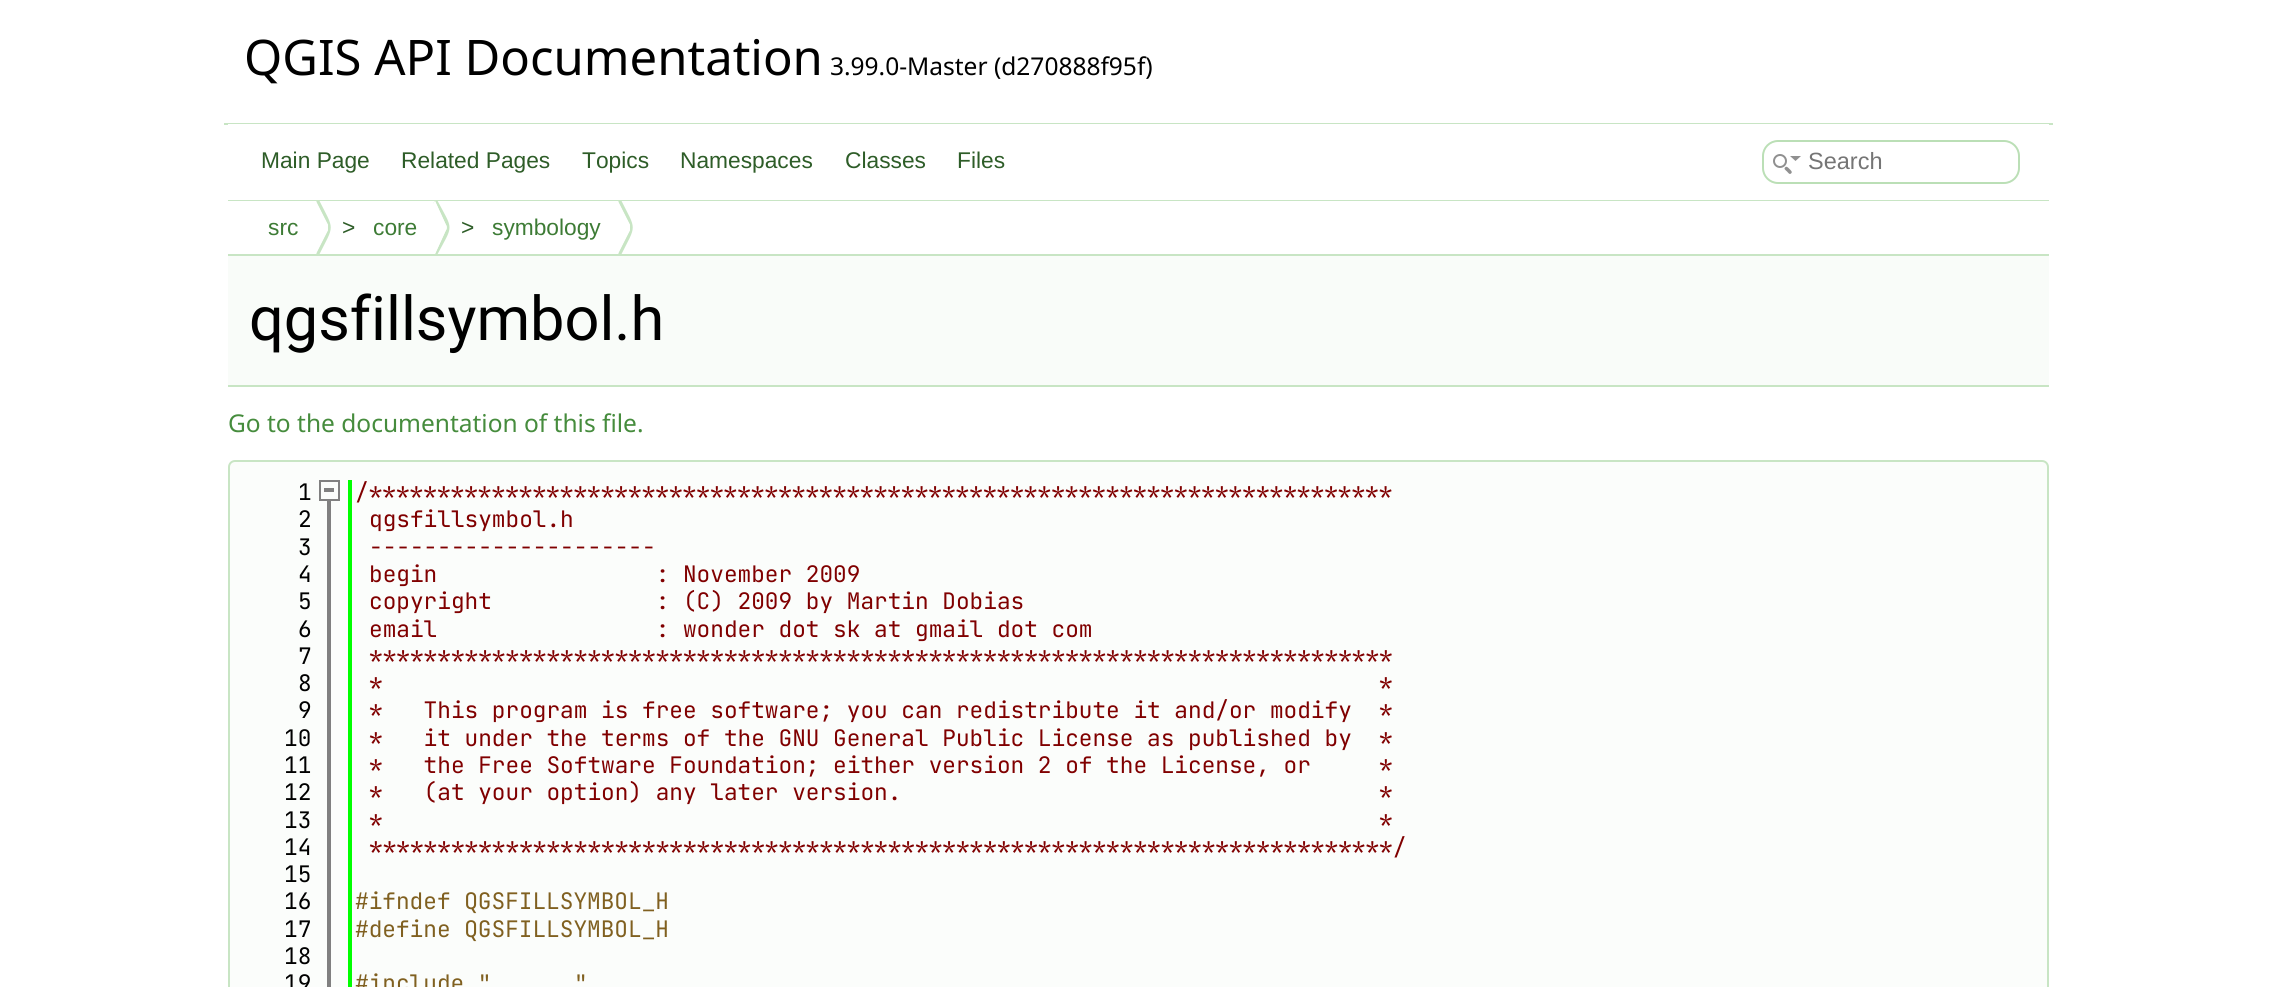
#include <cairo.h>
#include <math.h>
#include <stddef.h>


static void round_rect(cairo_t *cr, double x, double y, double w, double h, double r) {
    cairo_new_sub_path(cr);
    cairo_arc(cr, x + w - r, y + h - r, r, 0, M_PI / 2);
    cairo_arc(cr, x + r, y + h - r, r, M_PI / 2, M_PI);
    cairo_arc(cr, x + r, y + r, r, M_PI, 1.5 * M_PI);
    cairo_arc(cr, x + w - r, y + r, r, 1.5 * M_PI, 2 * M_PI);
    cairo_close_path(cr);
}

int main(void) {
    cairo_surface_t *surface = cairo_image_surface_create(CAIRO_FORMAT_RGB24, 2276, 987);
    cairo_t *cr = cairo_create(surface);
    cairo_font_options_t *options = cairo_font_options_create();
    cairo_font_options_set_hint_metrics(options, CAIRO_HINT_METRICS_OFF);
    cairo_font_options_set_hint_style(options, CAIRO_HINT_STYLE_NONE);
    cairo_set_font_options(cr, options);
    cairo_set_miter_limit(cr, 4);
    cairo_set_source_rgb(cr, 1, 1, 1);
    cairo_paint(cr);
    cairo_set_source_rgb(cr, 0.784, 0.898, 0.769);
    cairo_rectangle(cr, 224, 123, 1829, 2);
    cairo_fill(cr);
    cairo_select_font_face(cr, "Noto Sans", CAIRO_FONT_SLANT_NORMAL, CAIRO_FONT_WEIGHT_NORMAL);
    cairo_set_font_size(cr, 49);
    cairo_set_source_rgb(cr, 0, 0, 0);
    cairo_move_to(cr, 244, 75);
    cairo_show_text(cr, "QGIS API Documentation");
    cairo_set_font_size(cr, 24.5);
    cairo_move_to(cr, 830, 75);
    cairo_show_text(cr, "3.99.0-Master (d270888f95f)");
    cairo_set_source_rgb(cr, 0.784, 0.898, 0.769);
    cairo_rectangle(cr, 228, 200, 1821, 1);
    cairo_fill(cr);
    cairo_set_source_rgb(cr, 1, 1, 1);
    cairo_rectangle(cr, 228, 124, 1821, 1);
    cairo_fill(cr);
    cairo_select_font_face(cr, "Liberation Sans", CAIRO_FONT_SLANT_NORMAL, CAIRO_FONT_WEIGHT_NORMAL);
    cairo_set_font_size(cr, 22.75);
    cairo_set_source_rgb(cr, 0.18, 0.365, 0.157);
    cairo_move_to(cr, 261, 168);
    cairo_show_text(cr, "Main Page");
    cairo_move_to(cr, 401, 168);
    cairo_show_text(cr, "Related Pages");
    cairo_move_to(cr, 582, 168);
    cairo_show_text(cr, "Topics");
    cairo_move_to(cr, 680, 168);
    cairo_show_text(cr, "Namespaces");
    cairo_move_to(cr, 845, 168);
    cairo_show_text(cr, "Classes");
    cairo_move_to(cr, 957, 168);
    cairo_show_text(cr, "Files");
    round_rect(cr, 1763, 141, 256, 42, 15);
    cairo_set_source_rgb(cr, 0.733, 0.875, 0.714);
    cairo_stroke(cr);
    cairo_arc(cr, 1780, 161, 6, 0, 2 * M_PI);
    cairo_set_source_rgb(cr, 0.565, 0.565, 0.565);
    cairo_stroke(cr);
    cairo_new_path(cr);
    cairo_move_to(cr, 1790, 156);
    cairo_line_to(cr, 1801, 156);
    cairo_line_to(cr, 1795.5, 161);
    cairo_close_path(cr);
    cairo_move_to(cr, 1785, 167.5);
    cairo_curve_to(cr, 1786.5, 165.5, 1788.5, 168, 1789.5, 169);
    cairo_curve_to(cr, 1790.5, 170, 1793, 172, 1791, 173.5);
    cairo_curve_to(cr, 1789.5, 175, 1788, 172.5, 1787, 171.5);
    cairo_curve_to(cr, 1786, 170.5, 1783.5, 169, 1785, 167.5);
    cairo_close_path(cr);
    cairo_fill(cr);
    cairo_set_font_size(cr, 23.5);
    cairo_set_source_rgb(cr, 0.459, 0.459, 0.459);
    cairo_move_to(cr, 1808, 169);
    cairo_show_text(cr, "Search");
    cairo_set_source_rgb(cr, 0.784, 0.898, 0.769);
    cairo_rectangle(cr, 228, 254, 1821, 2);
    cairo_fill(cr);
    cairo_set_font_size(cr, 22.75);
    cairo_set_source_rgb(cr, 0.239, 0.482, 0.208);
    cairo_move_to(cr, 268, 235);
    cairo_show_text(cr, "src");
    cairo_save(cr);
    cairo_rectangle(cr, 228, 201, 1821, 53);
    cairo_clip(cr);
    cairo_set_source_rgb(cr, 0.784, 0.898, 0.769);
    cairo_new_path(cr);
    cairo_move_to(cr, 318, 198);
    cairo_line_to(cr, 316, 202);
    cairo_line_to(cr, 328, 225);
    cairo_curve_to(cr, 328, 226, 328, 229, 328, 230);
    cairo_line_to(cr, 316, 253);
    cairo_line_to(cr, 318, 257);
    cairo_curve_to(cr, 335, 223, 335, 232, 318, 198);
    cairo_close_path(cr);
    cairo_fill(cr);
    cairo_restore(cr);
    cairo_set_source_rgb(cr, 1, 1, 1);
    cairo_new_path(cr);
    cairo_move_to(cr, 316, 201);
    cairo_line_to(cr, 328, 225);
    cairo_curve_to(cr, 328, 226, 328, 229, 328, 230);
    cairo_line_to(cr, 316, 254);
    cairo_curve_to(cr, 309, 239, 309, 216, 316, 201);
    cairo_close_path(cr);
    cairo_fill(cr);
    cairo_set_source_rgb(cr, 0.18, 0.365, 0.157);
    cairo_move_to(cr, 342, 235);
    cairo_show_text(cr, ">");
    cairo_set_source_rgb(cr, 0.239, 0.482, 0.208);
    cairo_move_to(cr, 373, 235);
    cairo_show_text(cr, "core");
    cairo_save(cr);
    cairo_rectangle(cr, 228, 201, 1821, 53);
    cairo_clip(cr);
    cairo_set_source_rgb(cr, 0.784, 0.898, 0.769);
    cairo_new_path(cr);
    cairo_move_to(cr, 436, 198);
    cairo_line_to(cr, 433, 204);
    cairo_line_to(cr, 435, 201);
    cairo_line_to(cr, 446, 225);
    cairo_curve_to(cr, 447, 226, 447, 229, 446, 230);
    cairo_line_to(cr, 435, 254);
    cairo_line_to(cr, 436, 257);
    cairo_curve_to(cr, 454, 223, 454, 232, 436, 198);
    cairo_close_path(cr);
    cairo_fill(cr);
    cairo_restore(cr);
    cairo_set_source_rgb(cr, 1, 1, 1);
    cairo_new_path(cr);
    cairo_move_to(cr, 435, 201);
    cairo_line_to(cr, 446, 225);
    cairo_curve_to(cr, 447, 226, 447, 229, 446, 230);
    cairo_line_to(cr, 435, 254);
    cairo_curve_to(cr, 427, 239, 427, 216, 435, 201);
    cairo_close_path(cr);
    cairo_fill(cr);
    cairo_set_source_rgb(cr, 0.18, 0.365, 0.157);
    cairo_move_to(cr, 461, 235);
    cairo_show_text(cr, ">");
    cairo_set_source_rgb(cr, 0.239, 0.482, 0.208);
    cairo_move_to(cr, 492, 235);
    cairo_show_text(cr, "symbology");
    cairo_save(cr);
    cairo_rectangle(cr, 228, 201, 1821, 53);
    cairo_clip(cr);
    cairo_set_source_rgb(cr, 0.784, 0.898, 0.769);
    cairo_new_path(cr);
    cairo_move_to(cr, 620, 198);
    cairo_line_to(cr, 618, 202);
    cairo_line_to(cr, 630, 225);
    cairo_curve_to(cr, 630, 226, 630, 229, 630, 230);
    cairo_line_to(cr, 618, 253);
    cairo_line_to(cr, 620, 257);
    cairo_curve_to(cr, 637, 223, 637, 232, 620, 198);
    cairo_close_path(cr);
    cairo_fill(cr);
    cairo_restore(cr);
    cairo_set_source_rgb(cr, 1, 1, 1);
    cairo_new_path(cr);
    cairo_move_to(cr, 618, 201);
    cairo_line_to(cr, 630, 225);
    cairo_curve_to(cr, 630, 226, 630, 229, 630, 230);
    cairo_line_to(cr, 618, 254);
    cairo_curve_to(cr, 611, 239, 611, 216, 618, 201);
    cairo_close_path(cr);
    cairo_fill(cr);
    cairo_set_source_rgb(cr, 0.976, 0.988, 0.976);
    cairo_rectangle(cr, 228, 256, 1821, 129);
    cairo_fill(cr);
    cairo_set_source_rgb(cr, 0.784, 0.898, 0.769);
    cairo_rectangle(cr, 228, 385, 1821, 2);
    cairo_fill(cr);
    cairo_select_font_face(cr, "Roboto", CAIRO_FONT_SLANT_NORMAL, CAIRO_FONT_WEIGHT_NORMAL);
    cairo_set_font_size(cr, 61.25);
    cairo_set_source_rgb(cr, 0, 0, 0);
    cairo_move_to(cr, 249, 340);
    cairo_show_text(cr, "qgsfillsymbol.h");
    cairo_select_font_face(cr, "Noto Sans", CAIRO_FONT_SLANT_NORMAL, CAIRO_FONT_WEIGHT_NORMAL);
    cairo_set_font_size(cr, 24.5);
    cairo_set_source_rgb(cr, 0.275, 0.549, 0.239);
    cairo_move_to(cr, 228, 432);
    cairo_show_text(cr, "Go to the documentation of this file.");
    cairo_set_source_rgb(cr, 0.984, 0.992, 0.984);
    round_rect(cr, 229, 461, 1819, 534, 6);
    cairo_fill_preserve(cr);
    cairo_set_source_rgb(cr, 0.784, 0.898, 0.769);
    cairo_stroke(cr);
    cairo_set_source_rgb(cr, 0.502, 0.502, 0.502);
    cairo_rectangle(cr, 327, 501, 4, 486);
    cairo_fill(cr);
    cairo_set_source_rgb(cr, 0, 1, 0);
    cairo_rectangle(cr, 348, 480, 4, 507);
    cairo_fill(cr);
    cairo_select_font_face(cr, "JetBrains Mono", CAIRO_FONT_SLANT_NORMAL, CAIRO_FONT_WEIGHT_NORMAL);
    cairo_set_font_size(cr, 22.75);
    cairo_set_source_rgb(cr, 0, 0, 0);
    cairo_move_to(cr, 298, 500);
    cairo_show_text(cr, "1");
    cairo_rectangle(cr, 320, 481, 19, 19);
    cairo_set_source_rgb(cr, 0.502, 0.502, 0.502);
    cairo_stroke(cr);
    cairo_rectangle(cr, 324, 488, 10, 4);
    cairo_fill(cr);
    cairo_set_source_rgb(cr, 0.502, 0, 0);
    cairo_move_to(cr, 355, 500);
    cairo_show_text(cr, "/***************************************************************************");
    cairo_set_source_rgb(cr, 0, 0, 0);
    cairo_move_to(cr, 298, 527);
    cairo_show_text(cr, "2");
    cairo_set_source_rgb(cr, 0.502, 0, 0);
    cairo_move_to(cr, 369, 527);
    cairo_show_text(cr, "qgsfillsymbol.h");
    cairo_set_source_rgb(cr, 0, 0, 0);
    cairo_move_to(cr, 298, 555);
    cairo_show_text(cr, "3");
    cairo_set_source_rgb(cr, 0.502, 0, 0);
    cairo_move_to(cr, 369, 555);
    cairo_show_text(cr, "---------------------");
    cairo_set_source_rgb(cr, 0, 0, 0);
    cairo_move_to(cr, 298, 582);
    cairo_show_text(cr, "4");
    cairo_set_source_rgb(cr, 0.502, 0, 0);
    cairo_move_to(cr, 369, 582);
    cairo_show_text(cr, "begin                : November 2009");
    cairo_set_source_rgb(cr, 0, 0, 0);
    cairo_move_to(cr, 298, 609);
    cairo_show_text(cr, "5");
    cairo_set_source_rgb(cr, 0.502, 0, 0);
    cairo_move_to(cr, 369, 609);
    cairo_show_text(cr, "copyright            : (C) 2009 by Martin Dobias");
    cairo_set_source_rgb(cr, 0, 0, 0);
    cairo_move_to(cr, 298, 637);
    cairo_show_text(cr, "6");
    cairo_set_source_rgb(cr, 0.502, 0, 0);
    cairo_move_to(cr, 369, 637);
    cairo_show_text(cr, "email                : wonder dot sk at gmail dot com");
    cairo_set_source_rgb(cr, 0, 0, 0);
    cairo_move_to(cr, 298, 664);
    cairo_show_text(cr, "7");
    cairo_set_source_rgb(cr, 0.502, 0, 0);
    cairo_move_to(cr, 369, 664);
    cairo_show_text(cr, "***************************************************************************");
    cairo_set_source_rgb(cr, 0, 0, 0);
    cairo_move_to(cr, 298, 691);
    cairo_show_text(cr, "8");
    cairo_set_source_rgb(cr, 0.502, 0, 0);
    cairo_move_to(cr, 369, 691);
    cairo_show_text(cr, "*                                                                         *");
    cairo_set_source_rgb(cr, 0, 0, 0);
    cairo_move_to(cr, 298, 718);
    cairo_show_text(cr, "9");
    cairo_set_source_rgb(cr, 0.502, 0, 0);
    cairo_move_to(cr, 369, 718);
    cairo_show_text(cr, "*   This program is free software; you can redistribute it and/or modify  *");
    cairo_set_source_rgb(cr, 0, 0, 0);
    cairo_move_to(cr, 284, 746);
    cairo_show_text(cr, "10");
    cairo_set_source_rgb(cr, 0.502, 0, 0);
    cairo_move_to(cr, 369, 746);
    cairo_show_text(cr, "*   it under the terms of the GNU General Public License as published by  *");
    cairo_set_source_rgb(cr, 0, 0, 0);
    cairo_move_to(cr, 284, 773);
    cairo_show_text(cr, "11");
    cairo_set_source_rgb(cr, 0.502, 0, 0);
    cairo_move_to(cr, 369, 773);
    cairo_show_text(cr, "*   the Free Software Foundation; either version 2 of the License, or     *");
    cairo_set_source_rgb(cr, 0, 0, 0);
    cairo_move_to(cr, 284, 800);
    cairo_show_text(cr, "12");
    cairo_set_source_rgb(cr, 0.502, 0, 0);
    cairo_move_to(cr, 369, 800);
    cairo_show_text(cr, "*   (at your option) any later version.                                   *");
    cairo_set_source_rgb(cr, 0, 0, 0);
    cairo_move_to(cr, 284, 828);
    cairo_show_text(cr, "13");
    cairo_set_source_rgb(cr, 0.502, 0, 0);
    cairo_move_to(cr, 369, 828);
    cairo_show_text(cr, "*                                                                         *");
    cairo_set_source_rgb(cr, 0, 0, 0);
    cairo_move_to(cr, 284, 855);
    cairo_show_text(cr, "14");
    cairo_set_source_rgb(cr, 0.502, 0, 0);
    cairo_move_to(cr, 369, 855);
    cairo_show_text(cr, "***************************************************************************/");
    cairo_set_source_rgb(cr, 0, 0, 0);
    cairo_move_to(cr, 284, 882);
    cairo_show_text(cr, "15");
    cairo_move_to(cr, 284, 909);
    cairo_show_text(cr, "16");
    cairo_set_source_rgb(cr, 0.502, 0.376, 0.125);
    cairo_move_to(cr, 355, 909);
    cairo_show_text(cr, "#ifndef QGSFILLSYMBOL_H");
    cairo_set_source_rgb(cr, 0, 0, 0);
    cairo_move_to(cr, 284, 937);
    cairo_show_text(cr, "17");
    cairo_set_source_rgb(cr, 0.502, 0.376, 0.125);
    cairo_move_to(cr, 355, 937);
    cairo_show_text(cr, "#define QGSFILLSYMBOL_H");
    cairo_set_source_rgb(cr, 0, 0, 0);
    cairo_move_to(cr, 284, 964);
    cairo_show_text(cr, "18");
    cairo_move_to(cr, 284, 991);
    cairo_show_text(cr, "19");
    cairo_set_source_rgb(cr, 0.502, 0.376, 0.125);
    cairo_move_to(cr, 355, 991);
    cairo_show_text(cr, "#include \"");
    cairo_move_to(cr, 574, 991);
    cairo_show_text(cr, "\"");
    cairo_surface_write_to_png(surface, "page.png");
    cairo_font_options_destroy(options);
    cairo_destroy(cr);
    cairo_surface_destroy(surface);
    return 0;
}
